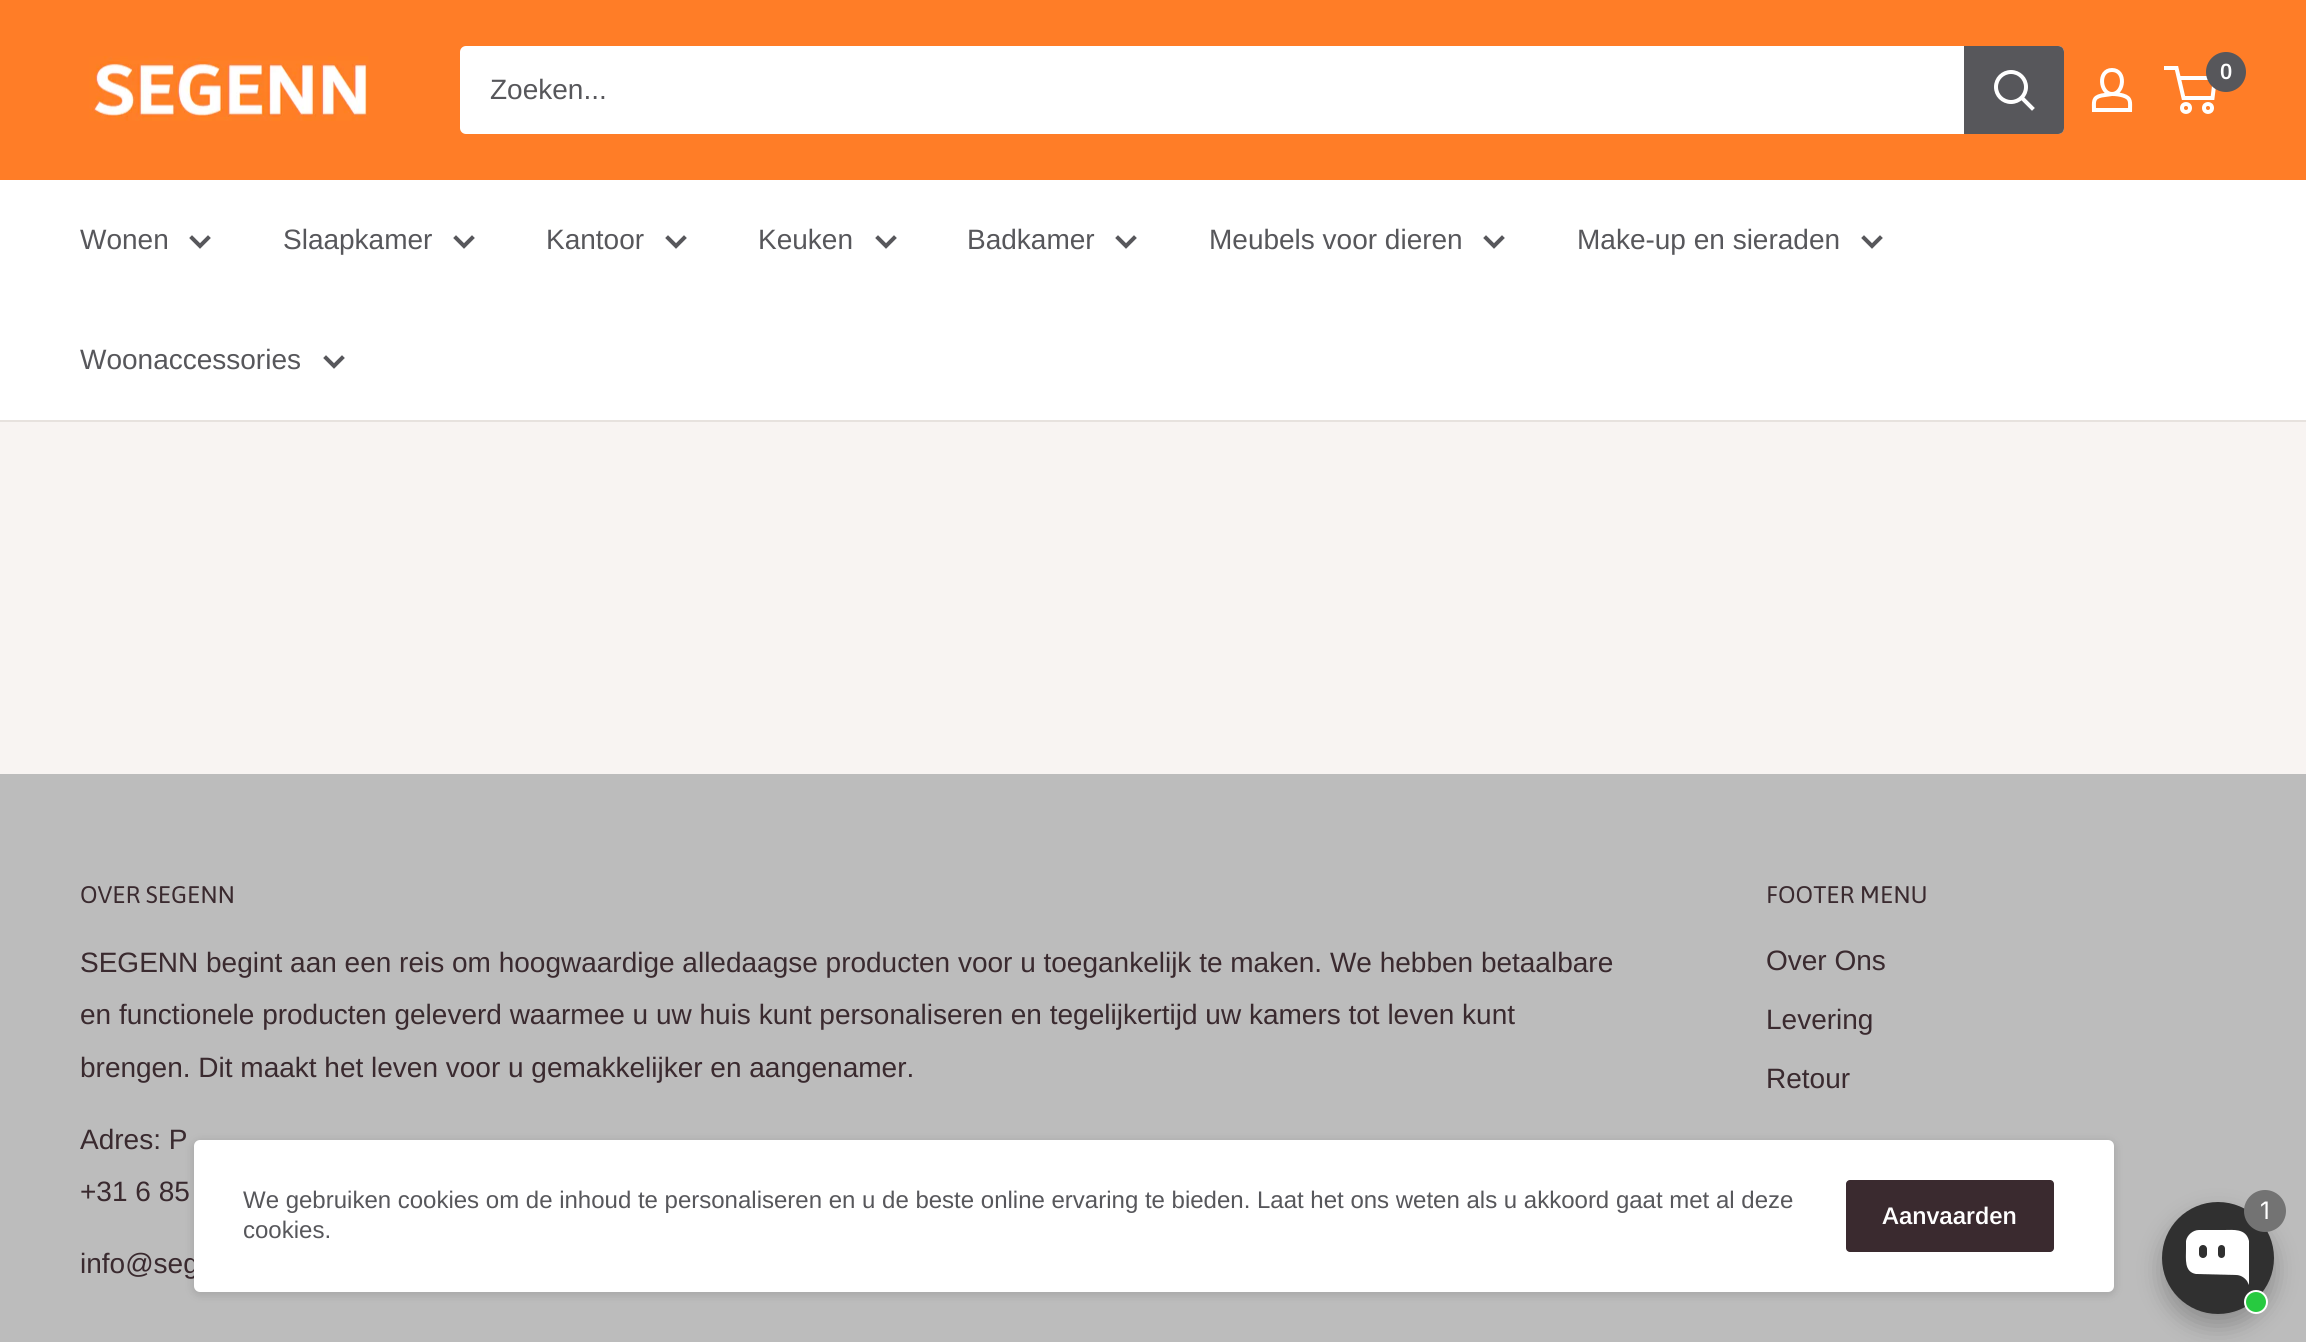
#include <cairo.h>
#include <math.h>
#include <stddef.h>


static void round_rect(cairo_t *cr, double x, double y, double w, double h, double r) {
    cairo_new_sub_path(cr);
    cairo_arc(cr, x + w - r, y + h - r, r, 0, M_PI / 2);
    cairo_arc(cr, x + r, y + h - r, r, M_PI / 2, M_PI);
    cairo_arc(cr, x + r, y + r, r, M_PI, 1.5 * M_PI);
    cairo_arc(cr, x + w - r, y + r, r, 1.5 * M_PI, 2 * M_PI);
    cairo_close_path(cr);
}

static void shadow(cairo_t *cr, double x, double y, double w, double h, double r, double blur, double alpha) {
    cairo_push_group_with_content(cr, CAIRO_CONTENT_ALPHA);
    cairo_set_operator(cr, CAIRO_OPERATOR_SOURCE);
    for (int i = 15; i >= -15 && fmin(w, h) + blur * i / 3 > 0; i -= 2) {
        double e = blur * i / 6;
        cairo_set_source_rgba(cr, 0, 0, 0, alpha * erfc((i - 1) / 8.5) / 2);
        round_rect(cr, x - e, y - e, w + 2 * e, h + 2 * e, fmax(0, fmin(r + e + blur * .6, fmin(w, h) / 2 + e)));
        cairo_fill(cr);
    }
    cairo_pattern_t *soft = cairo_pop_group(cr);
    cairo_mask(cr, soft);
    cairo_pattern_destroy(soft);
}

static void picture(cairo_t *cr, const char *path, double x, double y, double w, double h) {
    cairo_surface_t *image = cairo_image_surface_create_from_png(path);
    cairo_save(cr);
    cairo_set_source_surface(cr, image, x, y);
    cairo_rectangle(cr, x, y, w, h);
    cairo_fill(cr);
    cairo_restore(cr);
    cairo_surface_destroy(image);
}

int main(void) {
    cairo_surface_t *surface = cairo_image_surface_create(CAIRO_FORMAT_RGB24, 2306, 1342);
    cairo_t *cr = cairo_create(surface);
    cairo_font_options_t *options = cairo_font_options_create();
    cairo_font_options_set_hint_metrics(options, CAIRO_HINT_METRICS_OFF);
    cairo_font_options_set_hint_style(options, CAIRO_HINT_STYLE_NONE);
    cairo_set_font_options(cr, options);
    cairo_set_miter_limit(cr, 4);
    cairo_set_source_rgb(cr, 0.969, 0.957, 0.949);
    cairo_paint(cr);
    cairo_set_source_rgb(cr, 1, 0.49, 0.153);
    cairo_rectangle(cr, 0, 0, 2306, 180);
    cairo_fill(cr);
    picture(cr, "img1.png", 89, 56, 280, 65);
    cairo_new_path(cr);
    cairo_move_to(cr, 2112, 94);
    cairo_curve_to(cr, 2116, 94, 2119.5, 94.5, 2123, 95.5);
    cairo_curve_to(cr, 2131.5, 98, 2130, 102.5, 2130, 110);
    cairo_line_to(cr, 2094, 110);
    cairo_curve_to(cr, 2094, 102, 2092.5, 97.5, 2101.5, 95.5);
    cairo_close_path(cr);
    cairo_move_to(cr, 2112, 94);
    cairo_curve_to(cr, 2100, 94, 2097.5, 70, 2112, 70);
    cairo_curve_to(cr, 2126.5, 70, 2124, 94, 2112, 94);
    cairo_close_path(cr);
    cairo_set_source_rgb(cr, 1, 1, 1);
    cairo_set_line_width(cr, 4);
    cairo_stroke(cr);
    cairo_arc(cr, 2186, 108, 4, 0, 2 * M_PI);
    cairo_stroke(cr);
    cairo_arc(cr, 2208, 108, 4, 0, 2 * M_PI);
    cairo_stroke(cr);
    cairo_new_path(cr);
    cairo_move_to(cr, 2178.5, 78);
    cairo_line_to(cr, 2215, 78);
    cairo_line_to(cr, 2212.5, 98);
    cairo_line_to(cr, 2183.5, 98);
    cairo_line_to(cr, 2176.5, 68);
    cairo_line_to(cr, 2164, 68);
    cairo_stroke(cr);
    cairo_set_source_rgb(cr, 0.341, 0.341, 0.357);
    cairo_arc(cr, 2226, 72, 20, 0, 2 * M_PI);
    cairo_fill(cr);
    cairo_select_font_face(cr, "Arimo SemiBold", CAIRO_FONT_SLANT_NORMAL, CAIRO_FONT_WEIGHT_NORMAL);
    cairo_set_font_size(cr, 22);
    cairo_set_source_rgb(cr, 1, 1, 1);
    cairo_move_to(cr, 2220, 79);
    cairo_show_text(cr, "0");
    round_rect(cr, 460, 46, 1604, 88, 6);
    cairo_fill(cr);
    cairo_select_font_face(cr, "Arimo", CAIRO_FONT_SLANT_NORMAL, CAIRO_FONT_WEIGHT_NORMAL);
    cairo_set_font_size(cr, 28);
    cairo_set_source_rgb(cr, 0.341, 0.341, 0.357);
    cairo_move_to(cr, 490, 99);
    cairo_show_text(cr, "Zoeken...");
    cairo_new_path(cr);
    cairo_move_to(cr, 1964, 46);
    cairo_line_to(cr, 2058, 46);
    cairo_curve_to(cr, 2061.5, 46, 2064, 48.5, 2064, 52);
    cairo_line_to(cr, 2064, 128);
    cairo_curve_to(cr, 2064, 131.5, 2061.5, 134, 2058, 134);
    cairo_line_to(cr, 1964, 134);
    cairo_close_path(cr);
    cairo_fill(cr);
    cairo_new_path(cr);
    cairo_move_to(cr, 2032, 108);
    cairo_line_to(cr, 2022, 98);
    cairo_set_source_rgb(cr, 1, 1, 1);
    cairo_set_line_cap(cr, CAIRO_LINE_CAP_SQUARE);
    cairo_stroke(cr);
    cairo_arc(cr, 2011, 87, 15, 0, 2 * M_PI);
    cairo_set_line_cap(cr, CAIRO_LINE_CAP_BUTT);
    cairo_stroke(cr);
    cairo_rectangle(cr, 0, 180, 2306, 240);
    cairo_fill(cr);
    cairo_set_source_rgb(cr, 0.906, 0.886, 0.871);
    cairo_rectangle(cr, 0, 420, 2306, 2);
    cairo_fill(cr);
    cairo_set_source_rgb(cr, 0.341, 0.341, 0.357);
    cairo_move_to(cr, 80, 249);
    cairo_show_text(cr, "Wonen");
    cairo_new_path(cr);
    cairo_move_to(cr, 208, 238);
    cairo_line_to(cr, 200, 246);
    cairo_line_to(cr, 192, 238);
    cairo_set_line_cap(cr, CAIRO_LINE_CAP_SQUARE);
    cairo_stroke(cr);
    cairo_move_to(cr, 283, 249);
    cairo_show_text(cr, "Slaapkamer");
    cairo_new_path(cr);
    cairo_move_to(cr, 472, 238);
    cairo_line_to(cr, 464, 246);
    cairo_line_to(cr, 456, 238);
    cairo_stroke(cr);
    cairo_move_to(cr, 546, 249);
    cairo_show_text(cr, "Kantoor");
    cairo_new_path(cr);
    cairo_move_to(cr, 684, 238);
    cairo_line_to(cr, 676, 246);
    cairo_line_to(cr, 668, 238);
    cairo_stroke(cr);
    cairo_move_to(cr, 758, 249);
    cairo_show_text(cr, "Keuken");
    cairo_new_path(cr);
    cairo_move_to(cr, 894, 238);
    cairo_line_to(cr, 886, 246);
    cairo_line_to(cr, 878, 238);
    cairo_stroke(cr);
    cairo_move_to(cr, 967, 249);
    cairo_show_text(cr, "Badkamer");
    cairo_new_path(cr);
    cairo_move_to(cr, 1134, 238);
    cairo_line_to(cr, 1126, 246);
    cairo_line_to(cr, 1118, 238);
    cairo_stroke(cr);
    cairo_move_to(cr, 1209, 249);
    cairo_show_text(cr, "Meubels voor dieren");
    cairo_new_path(cr);
    cairo_move_to(cr, 1502, 238);
    cairo_line_to(cr, 1494, 246);
    cairo_line_to(cr, 1486, 238);
    cairo_stroke(cr);
    cairo_move_to(cr, 1577, 249);
    cairo_show_text(cr, "Make-up en sieraden");
    cairo_new_path(cr);
    cairo_move_to(cr, 1880, 238);
    cairo_line_to(cr, 1872, 246);
    cairo_line_to(cr, 1864, 238);
    cairo_stroke(cr);
    cairo_move_to(cr, 80, 369);
    cairo_show_text(cr, "Woonaccessories");
    cairo_new_path(cr);
    cairo_move_to(cr, 342, 358);
    cairo_line_to(cr, 334, 366);
    cairo_line_to(cr, 326, 358);
    cairo_stroke(cr);
    cairo_set_source_rgb(cr, 0.737, 0.737, 0.737);
    cairo_rectangle(cr, 0, 774, 2306, 568);
    cairo_fill(cr);
    cairo_select_font_face(cr, "Asap", CAIRO_FONT_SLANT_NORMAL, CAIRO_FONT_WEIGHT_NORMAL);
    cairo_set_font_size(cr, 24);
    cairo_set_source_rgb(cr, 0.227, 0.165, 0.184);
    cairo_move_to(cr, 80, 903);
    cairo_show_text(cr, "OVER SEGENN");
    cairo_select_font_face(cr, "Arimo", CAIRO_FONT_SLANT_NORMAL, CAIRO_FONT_WEIGHT_NORMAL);
    cairo_set_font_size(cr, 28);
    cairo_move_to(cr, 80, 972);
    cairo_show_text(cr, "SEGENN begint aan een reis om hoogwaardige alledaagse producten voor u toegankelijk te maken. We hebben betaalbare");
    cairo_move_to(cr, 80, 1024);
    cairo_show_text(cr, "en functionele producten geleverd waarmee u uw huis kunt personaliseren en tegelijkertijd uw kamers tot leven kunt");
    cairo_move_to(cr, 80, 1077);
    cairo_show_text(cr, "brengen. Dit maakt het leven voor u gemakkelijker en aangenamer.");
    cairo_move_to(cr, 80, 1149);
    cairo_show_text(cr, "Adres: P");
    cairo_move_to(cr, 80, 1201);
    cairo_show_text(cr, "+31 6 85");
    cairo_move_to(cr, 80, 1273);
    cairo_show_text(cr, "info@seg");
    cairo_select_font_face(cr, "Asap", CAIRO_FONT_SLANT_NORMAL, CAIRO_FONT_WEIGHT_NORMAL);
    cairo_set_font_size(cr, 24);
    cairo_move_to(cr, 1766, 903);
    cairo_show_text(cr, "FOOTER MENU");
    cairo_select_font_face(cr, "Arimo", CAIRO_FONT_SLANT_NORMAL, CAIRO_FONT_WEIGHT_NORMAL);
    cairo_set_font_size(cr, 28);
    cairo_move_to(cr, 1766, 970);
    cairo_show_text(cr, "Over Ons");
    cairo_move_to(cr, 1766, 1029);
    cairo_show_text(cr, "Levering");
    cairo_move_to(cr, 1766, 1088);
    cairo_show_text(cr, "Retour");
    cairo_set_source_rgb(cr, 0, 0, 0);
    shadow(cr, 192, 1140, 1924, 156, 8, 4, 0.1);
    cairo_set_source_rgb(cr, 1, 1, 1);
    round_rect(cr, 194, 1140, 1920, 152, 6);
    cairo_fill(cr);
    cairo_set_font_size(cr, 24);
    cairo_set_source_rgb(cr, 0.341, 0.341, 0.357);
    cairo_move_to(cr, 243, 1208);
    cairo_show_text(cr, "We gebruiken cookies om de inhoud te personaliseren en u de beste online ervaring te bieden. Laat het ons weten als u akkoord gaat met al deze");
    cairo_move_to(cr, 243, 1238);
    cairo_show_text(cr, "cookies.");
    cairo_set_source_rgb(cr, 0.227, 0.165, 0.184);
    round_rect(cr, 1846, 1180, 208, 72, 4);
    cairo_fill(cr);
    cairo_select_font_face(cr, "Arimo SemiBold", CAIRO_FONT_SLANT_NORMAL, CAIRO_FONT_WEIGHT_NORMAL);
    cairo_set_source_rgb(cr, 1, 1, 1);
    cairo_move_to(cr, 1882, 1224);
    cairo_show_text(cr, "Aanvaarden");
    cairo_set_source_rgb(cr, 0, 0, 0);
    shadow(cr, 2162, 1214, 112, 112, 56, 12, 0.25);
    cairo_set_source_rgb(cr, 0.188, 0.188, 0.188);
    cairo_arc(cr, 2218, 1258, 56, 0, 2 * M_PI);
    cairo_fill(cr);
    cairo_set_source_rgb(cr, 1, 1, 1);
    cairo_set_fill_rule(cr, CAIRO_FILL_RULE_EVEN_ODD);
    cairo_new_path(cr);
    cairo_move_to(cr, 2199, 1230);
    cairo_curve_to(cr, 2193, 1230, 2187, 1235, 2186, 1241);
    cairo_line_to(cr, 2186, 1249);
    cairo_curve_to(cr, 2186, 1259, 2184, 1272, 2196, 1274);
    cairo_line_to(cr, 2236, 1275);
    cairo_curve_to(cr, 2240, 1275, 2244, 1277, 2247, 1281);
    cairo_line_to(cr, 2249, 1285);
    cairo_line_to(cr, 2249, 1241);
    cairo_curve_to(cr, 2246, 1228, 2233, 1230, 2224, 1230);
    cairo_close_path(cr);
    cairo_fill(cr);
    cairo_set_source_rgb(cr, 0.188, 0.188, 0.188);
    round_rect(cr, 2199, 1245, 8, 13, 4);
    cairo_fill(cr);
    round_rect(cr, 2218, 1245, 7, 13, 3.5);
    cairo_fill(cr);
    cairo_set_source_rgb(cr, 0.153, 0.792, 0.251);
    cairo_arc(cr, 2256, 1302, 11, 0, 2 * M_PI);
    cairo_fill_preserve(cr);
    cairo_set_source_rgb(cr, 1, 1, 1);
    cairo_set_line_width(cr, 2);
    cairo_set_line_cap(cr, CAIRO_LINE_CAP_BUTT);
    cairo_stroke(cr);
    cairo_set_source_rgb(cr, 0.451, 0.451, 0.451);
    cairo_arc(cr, 2265, 1211, 21, 0, 2 * M_PI);
    cairo_fill(cr);
    cairo_select_font_face(cr, "Inter", CAIRO_FONT_SLANT_NORMAL, CAIRO_FONT_WEIGHT_NORMAL);
    cairo_set_source_rgb(cr, 1, 1, 1);
    cairo_move_to(cr, 2260, 1219);
    cairo_show_text(cr, "1");
    cairo_surface_write_to_png(surface, "page.png");
    cairo_font_options_destroy(options);
    cairo_destroy(cr);
    cairo_surface_destroy(surface);
    return 0;
}
